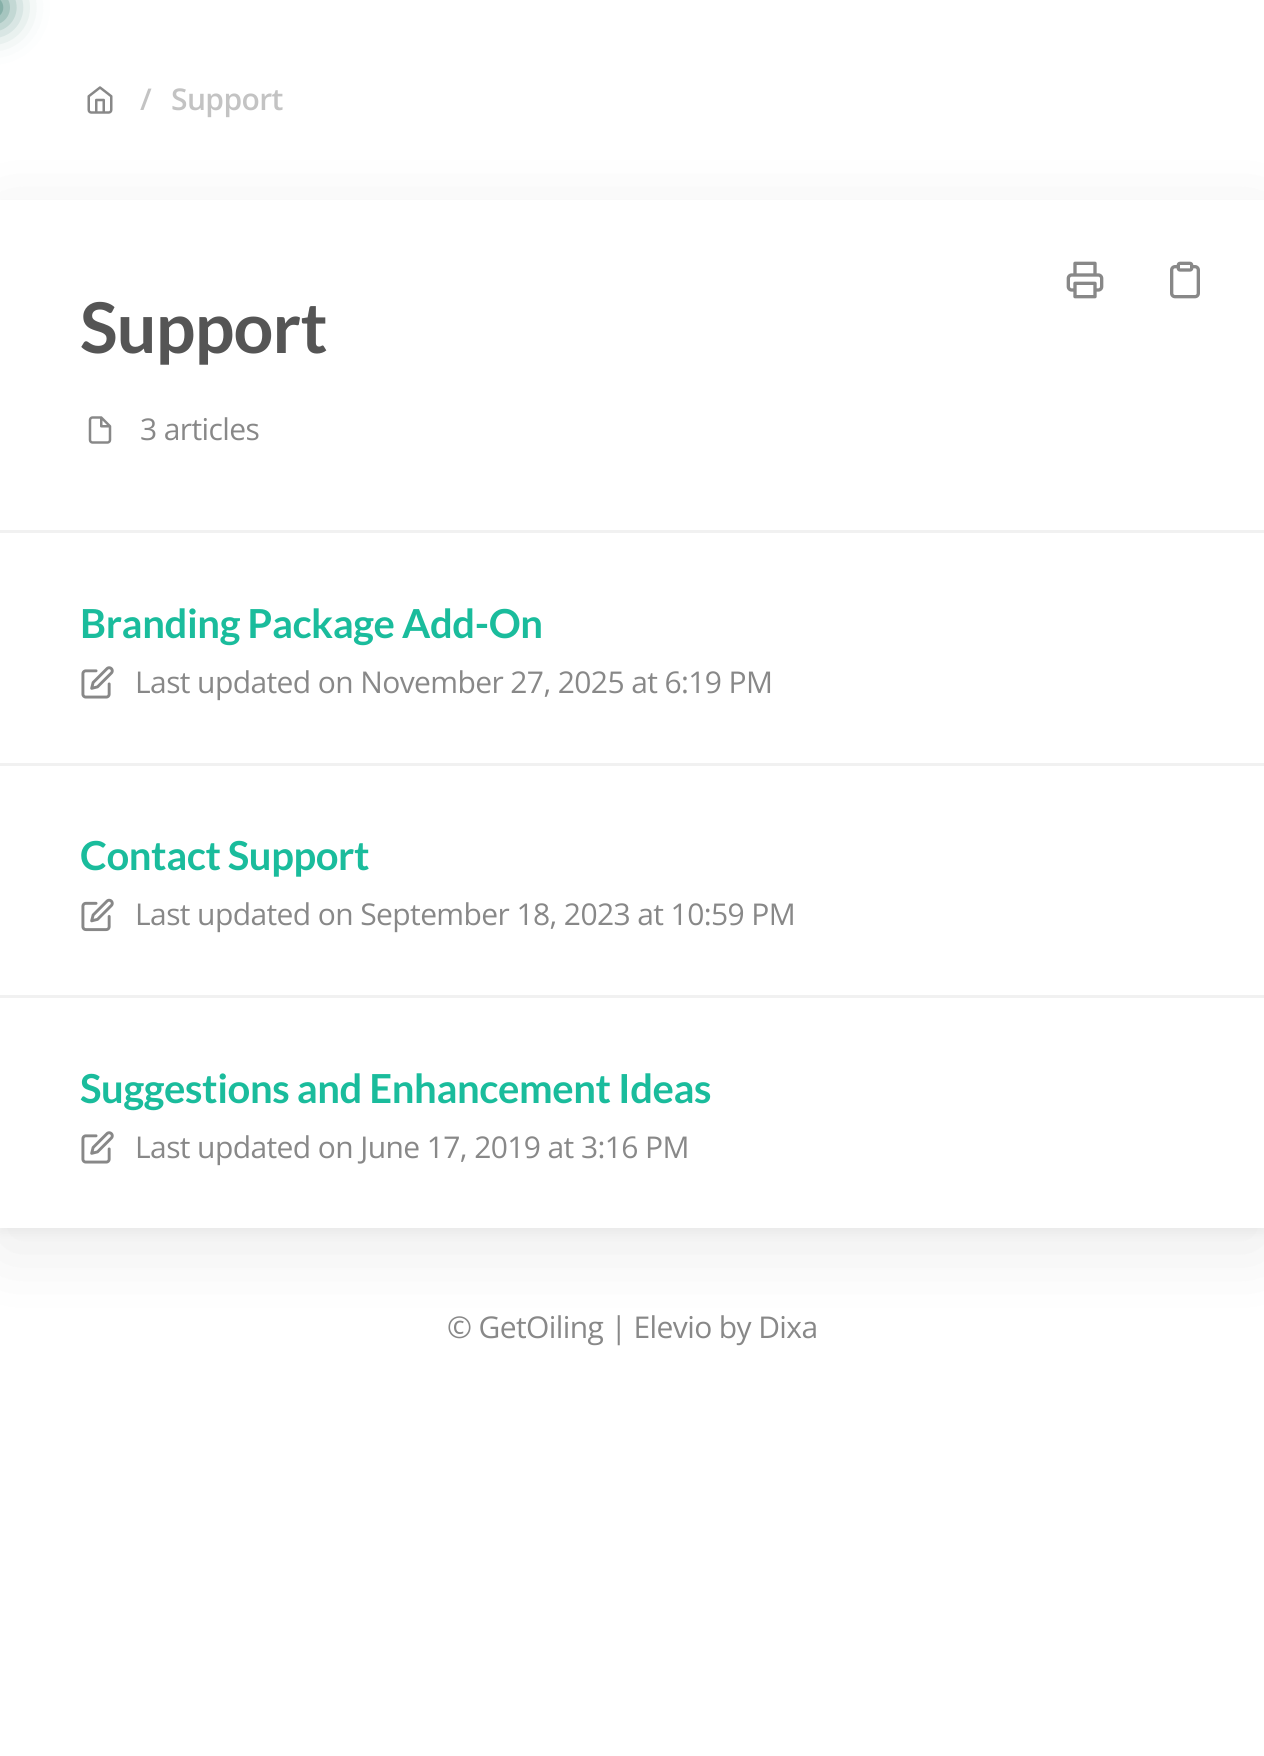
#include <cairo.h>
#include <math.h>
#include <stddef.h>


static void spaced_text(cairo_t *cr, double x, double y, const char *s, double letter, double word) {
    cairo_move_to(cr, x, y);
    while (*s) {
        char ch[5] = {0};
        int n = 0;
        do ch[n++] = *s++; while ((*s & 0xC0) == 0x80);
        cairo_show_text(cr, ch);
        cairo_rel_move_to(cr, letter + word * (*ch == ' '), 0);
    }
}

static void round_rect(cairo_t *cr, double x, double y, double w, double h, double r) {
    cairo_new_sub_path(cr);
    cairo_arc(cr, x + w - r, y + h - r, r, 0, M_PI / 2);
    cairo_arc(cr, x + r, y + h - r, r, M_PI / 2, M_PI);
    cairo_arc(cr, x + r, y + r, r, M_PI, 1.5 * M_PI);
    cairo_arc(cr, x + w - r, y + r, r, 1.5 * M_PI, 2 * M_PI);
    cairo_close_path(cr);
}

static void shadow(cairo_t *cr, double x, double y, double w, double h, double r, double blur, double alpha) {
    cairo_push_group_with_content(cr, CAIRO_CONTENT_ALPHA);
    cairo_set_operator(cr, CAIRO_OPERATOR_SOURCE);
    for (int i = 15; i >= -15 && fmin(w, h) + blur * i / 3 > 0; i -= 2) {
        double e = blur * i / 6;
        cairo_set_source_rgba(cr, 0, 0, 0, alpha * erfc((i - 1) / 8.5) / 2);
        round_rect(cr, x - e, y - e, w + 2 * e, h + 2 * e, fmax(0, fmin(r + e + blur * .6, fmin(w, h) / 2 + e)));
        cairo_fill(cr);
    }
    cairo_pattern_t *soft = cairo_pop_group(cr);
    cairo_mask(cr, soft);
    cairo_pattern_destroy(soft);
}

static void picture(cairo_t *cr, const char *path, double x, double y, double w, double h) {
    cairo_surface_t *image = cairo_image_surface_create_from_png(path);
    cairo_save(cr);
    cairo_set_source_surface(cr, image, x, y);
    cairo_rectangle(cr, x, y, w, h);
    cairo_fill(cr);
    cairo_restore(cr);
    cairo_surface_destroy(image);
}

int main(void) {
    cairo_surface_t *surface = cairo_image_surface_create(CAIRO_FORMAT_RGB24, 1264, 1756);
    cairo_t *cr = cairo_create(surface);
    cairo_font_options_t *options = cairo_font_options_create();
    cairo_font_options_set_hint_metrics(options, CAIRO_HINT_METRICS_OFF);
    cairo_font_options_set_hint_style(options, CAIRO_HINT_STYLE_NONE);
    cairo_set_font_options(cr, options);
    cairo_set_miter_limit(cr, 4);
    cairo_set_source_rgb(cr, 1, 1, 1);
    cairo_paint(cr);
    cairo_set_source_rgb(cr, 0.055, 0.384, 0.322);
    shadow(cr, -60, 0, 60, 15, 0, 20, 1);
    cairo_set_source_rgb(cr, 0, 0, 0);
    shadow(cr, 0, 220, 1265, 1028, 0, 40, 0.08);
    picture(cr, "img1.png", 87, 86, 26, 28);
    cairo_select_font_face(cr, "Open Sans SemiBold", CAIRO_FONT_SLANT_NORMAL, CAIRO_FONT_WEIGHT_NORMAL);
    cairo_set_font_size(cr, 30);
    cairo_set_source_rgb(cr, 0.765, 0.765, 0.765);
    spaced_text(cr, 140, 110, "/", -0.6, 0);
    spaced_text(cr, 171, 110, "Support", -0.6, 0);
    cairo_set_source_rgb(cr, 0, 0, 0);
    shadow(cr, 0, 205, 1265, 1028, 0, 5, 0.04);
    cairo_set_source_rgb(cr, 1, 1, 1);
    cairo_rectangle(cr, 0, 200, 1264, 1028);
    cairo_fill(cr);
    picture(cr, "img2.png", 1066, 261, 38, 38);
    picture(cr, "img3.png", 1170, 261, 30, 38);
    cairo_select_font_face(cr, "Lato", CAIRO_FONT_SLANT_NORMAL, CAIRO_FONT_WEIGHT_BOLD);
    cairo_set_font_size(cr, 70);
    cairo_set_source_rgb(cr, 0.333, 0.333, 0.333);
    spaced_text(cr, 80, 353, "Support", -0.75, 0);
    picture(cr, "img4.png", 88, 416, 24, 28);
    cairo_select_font_face(cr, "Open Sans", CAIRO_FONT_SLANT_NORMAL, CAIRO_FONT_WEIGHT_NORMAL);
    cairo_set_font_size(cr, 30);
    cairo_set_source_rgb(cr, 0.533, 0.533, 0.533);
    spaced_text(cr, 140, 440, "3 articles", -0.6, 0);
    cairo_set_source_rgb(cr, 0.945, 0.945, 0.945);
    cairo_rectangle(cr, 0, 530, 1264, 3);
    cairo_fill(cr);
    cairo_select_font_face(cr, "Lato", CAIRO_FONT_SLANT_NORMAL, CAIRO_FONT_WEIGHT_BOLD);
    cairo_set_font_size(cr, 40);
    cairo_set_source_rgb(cr, 0.102, 0.737, 0.612);
    spaced_text(cr, 80, 638, "Branding Package Add-On", -0.4, 0);
    picture(cr, "img5.png", 81, 666, 33, 33);
    cairo_select_font_face(cr, "Open Sans", CAIRO_FONT_SLANT_NORMAL, CAIRO_FONT_WEIGHT_NORMAL);
    cairo_set_font_size(cr, 30);
    cairo_set_source_rgb(cr, 0.533, 0.533, 0.533);
    spaced_text(cr, 135, 693, "Last updated on November 27, 2025 at 6:19 PM", -0.6, 0);
    cairo_set_source_rgb(cr, 0.945, 0.945, 0.945);
    cairo_rectangle(cr, 0, 763, 1264, 3);
    cairo_fill(cr);
    cairo_select_font_face(cr, "Lato", CAIRO_FONT_SLANT_NORMAL, CAIRO_FONT_WEIGHT_BOLD);
    cairo_set_font_size(cr, 40);
    cairo_set_source_rgb(cr, 0.102, 0.737, 0.612);
    spaced_text(cr, 80, 870, "Contact Support", -0.4, 0);
    picture(cr, "img6.png", 81, 898, 33, 34);
    cairo_select_font_face(cr, "Open Sans", CAIRO_FONT_SLANT_NORMAL, CAIRO_FONT_WEIGHT_NORMAL);
    cairo_set_font_size(cr, 30);
    cairo_set_source_rgb(cr, 0.533, 0.533, 0.533);
    spaced_text(cr, 135, 925, "Last updated on September 18, 2023 at 10:59 PM", -0.6, 0);
    cairo_set_source_rgb(cr, 0.945, 0.945, 0.945);
    cairo_rectangle(cr, 0, 995, 1264, 3);
    cairo_fill(cr);
    cairo_select_font_face(cr, "Lato", CAIRO_FONT_SLANT_NORMAL, CAIRO_FONT_WEIGHT_BOLD);
    cairo_set_font_size(cr, 40);
    cairo_set_source_rgb(cr, 0.102, 0.737, 0.612);
    spaced_text(cr, 80, 1103, "Suggestions and Enhancement Ideas", -0.4, 0);
    picture(cr, "img5.png", 81, 1131, 33, 33);
    cairo_select_font_face(cr, "Open Sans", CAIRO_FONT_SLANT_NORMAL, CAIRO_FONT_WEIGHT_NORMAL);
    cairo_set_font_size(cr, 30);
    cairo_set_source_rgb(cr, 0.533, 0.533, 0.533);
    spaced_text(cr, 135, 1158, "Last updated on June 17, 2019 at 3:16 PM", -0.6, 0);
    spaced_text(cr, 447, 1338, "© GetOiling | Elevio by Dixa", -0.6, 0);
    cairo_surface_write_to_png(surface, "page.png");
    cairo_font_options_destroy(options);
    cairo_destroy(cr);
    cairo_surface_destroy(surface);
    return 0;
}
